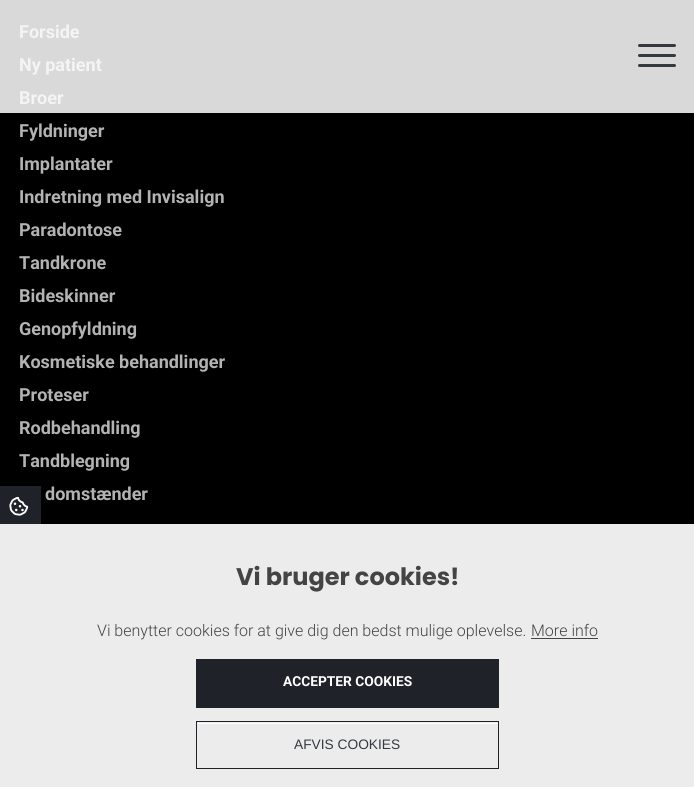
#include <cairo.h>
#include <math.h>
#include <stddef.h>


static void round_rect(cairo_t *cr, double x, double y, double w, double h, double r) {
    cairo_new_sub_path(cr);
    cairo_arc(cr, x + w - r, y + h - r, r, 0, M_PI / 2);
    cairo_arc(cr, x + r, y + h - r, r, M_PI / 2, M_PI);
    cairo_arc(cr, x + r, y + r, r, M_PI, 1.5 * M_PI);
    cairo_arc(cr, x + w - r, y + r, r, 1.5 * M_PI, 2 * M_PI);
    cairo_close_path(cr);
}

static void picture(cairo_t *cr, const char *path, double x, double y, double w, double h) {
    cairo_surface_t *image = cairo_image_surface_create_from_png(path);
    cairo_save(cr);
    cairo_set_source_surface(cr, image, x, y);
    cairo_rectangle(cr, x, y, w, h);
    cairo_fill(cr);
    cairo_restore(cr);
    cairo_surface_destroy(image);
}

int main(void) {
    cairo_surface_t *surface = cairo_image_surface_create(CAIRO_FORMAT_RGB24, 694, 787);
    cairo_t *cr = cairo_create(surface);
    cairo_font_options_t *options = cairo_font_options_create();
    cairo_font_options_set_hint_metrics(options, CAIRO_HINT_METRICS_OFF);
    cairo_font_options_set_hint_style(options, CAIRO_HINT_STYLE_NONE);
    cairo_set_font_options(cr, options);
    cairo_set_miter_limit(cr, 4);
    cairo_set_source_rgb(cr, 0, 0, 0);
    cairo_paint(cr);
    cairo_set_source_rgb(cr, 0.851, 0.851, 0.851);
    cairo_rectangle(cr, 0, 0, 694, 113);
    cairo_fill(cr);
    cairo_select_font_face(cr, "Roboto", CAIRO_FONT_SLANT_NORMAL, CAIRO_FONT_WEIGHT_BOLD);
    cairo_set_font_size(cr, 18);
    cairo_set_source_rgb(cr, 0.957, 0.957, 0.957);
    cairo_move_to(cr, 19, 38);
    cairo_show_text(cr, "Forside");
    cairo_move_to(cr, 19, 71);
    cairo_show_text(cr, "Ny patient");
    cairo_move_to(cr, 19, 104);
    cairo_show_text(cr, "Broer");
    cairo_set_source_rgb(cr, 0.702, 0.702, 0.702);
    cairo_move_to(cr, 19, 137);
    cairo_show_text(cr, "Fyldninger");
    cairo_move_to(cr, 19, 170);
    cairo_show_text(cr, "Implantater");
    cairo_move_to(cr, 19, 203);
    cairo_show_text(cr, "Indretning med Invisalign");
    cairo_move_to(cr, 19, 236);
    cairo_show_text(cr, "Paradontose");
    cairo_move_to(cr, 19, 269);
    cairo_show_text(cr, "Tandkrone");
    cairo_move_to(cr, 19, 302);
    cairo_show_text(cr, "Bideskinner");
    cairo_move_to(cr, 19, 335);
    cairo_show_text(cr, "Genopfyldning");
    cairo_move_to(cr, 19, 368);
    cairo_show_text(cr, "Kosmetiske behandlinger");
    cairo_move_to(cr, 19, 401);
    cairo_show_text(cr, "Proteser");
    cairo_move_to(cr, 19, 434);
    cairo_show_text(cr, "Rodbehandling");
    cairo_move_to(cr, 19, 467);
    cairo_show_text(cr, "Tandblegning");
    cairo_move_to(cr, 45, 500);
    cairo_show_text(cr, "domstænder");
    cairo_set_source_rgb(cr, 0.204, 0.227, 0.251);
    round_rect(cr, 638, 54, 38, 3, 1.5);
    cairo_fill(cr);
    round_rect(cr, 638, 44, 38, 3, 1.5);
    cairo_fill(cr);
    round_rect(cr, 638, 64, 38, 3, 1.5);
    cairo_fill(cr);
    cairo_set_source_rgb(cr, 0.925, 0.925, 0.925);
    cairo_rectangle(cr, 0, 524, 694, 263);
    cairo_fill(cr);
    cairo_set_source_rgb(cr, 0.125, 0.133, 0.161);
    cairo_rectangle(cr, 0, 486, 41, 38);
    cairo_fill(cr);
    picture(cr, "img1.png", 9, 496, 20, 20);
    cairo_select_font_face(cr, "Poppins", CAIRO_FONT_SLANT_NORMAL, CAIRO_FONT_WEIGHT_BOLD);
    cairo_set_font_size(cr, 24);
    cairo_set_source_rgb(cr, 0.267, 0.267, 0.267);
    cairo_move_to(cr, 236, 585);
    cairo_show_text(cr, "Vi bruger cookies!");
    cairo_select_font_face(cr, "Roboto Light", CAIRO_FONT_SLANT_NORMAL, CAIRO_FONT_WEIGHT_NORMAL);
    cairo_set_font_size(cr, 16);
    cairo_move_to(cr, 97, 636);
    cairo_show_text(cr, "Vi benytter cookies for at give dig den bedst mulige oplevelse.");
    cairo_move_to(cr, 531, 636);
    cairo_show_text(cr, "More info");
    cairo_rectangle(cr, 531, 638, 67, 1);
    cairo_fill(cr);
    cairo_set_source_rgb(cr, 0.125, 0.133, 0.161);
    cairo_rectangle(cr, 196, 659, 303, 49);
    cairo_fill(cr);
    cairo_select_font_face(cr, "Roboto", CAIRO_FONT_SLANT_NORMAL, CAIRO_FONT_WEIGHT_BOLD);
    cairo_set_font_size(cr, 13.75);
    cairo_set_source_rgb(cr, 1, 1, 1);
    cairo_move_to(cr, 283, 686);
    cairo_show_text(cr, "ACCEPTER COOKIES");
    cairo_rectangle(cr, 198, 723, 300, 1);
    cairo_fill(cr);
    cairo_rectangle(cr, 196.5, 721.5, 302, 47);
    cairo_set_source_rgb(cr, 0.125, 0.133, 0.161);
    cairo_set_line_width(cr, 1);
    cairo_stroke(cr);
    cairo_select_font_face(cr, "Liberation Sans", CAIRO_FONT_SLANT_NORMAL, CAIRO_FONT_WEIGHT_NORMAL);
    cairo_set_source_rgb(cr, 0.204, 0.227, 0.251);
    cairo_move_to(cr, 294, 749);
    cairo_show_text(cr, "AFVIS COOKIES");
    cairo_surface_write_to_png(surface, "page.png");
    cairo_font_options_destroy(options);
    cairo_destroy(cr);
    cairo_surface_destroy(surface);
    return 0;
}
